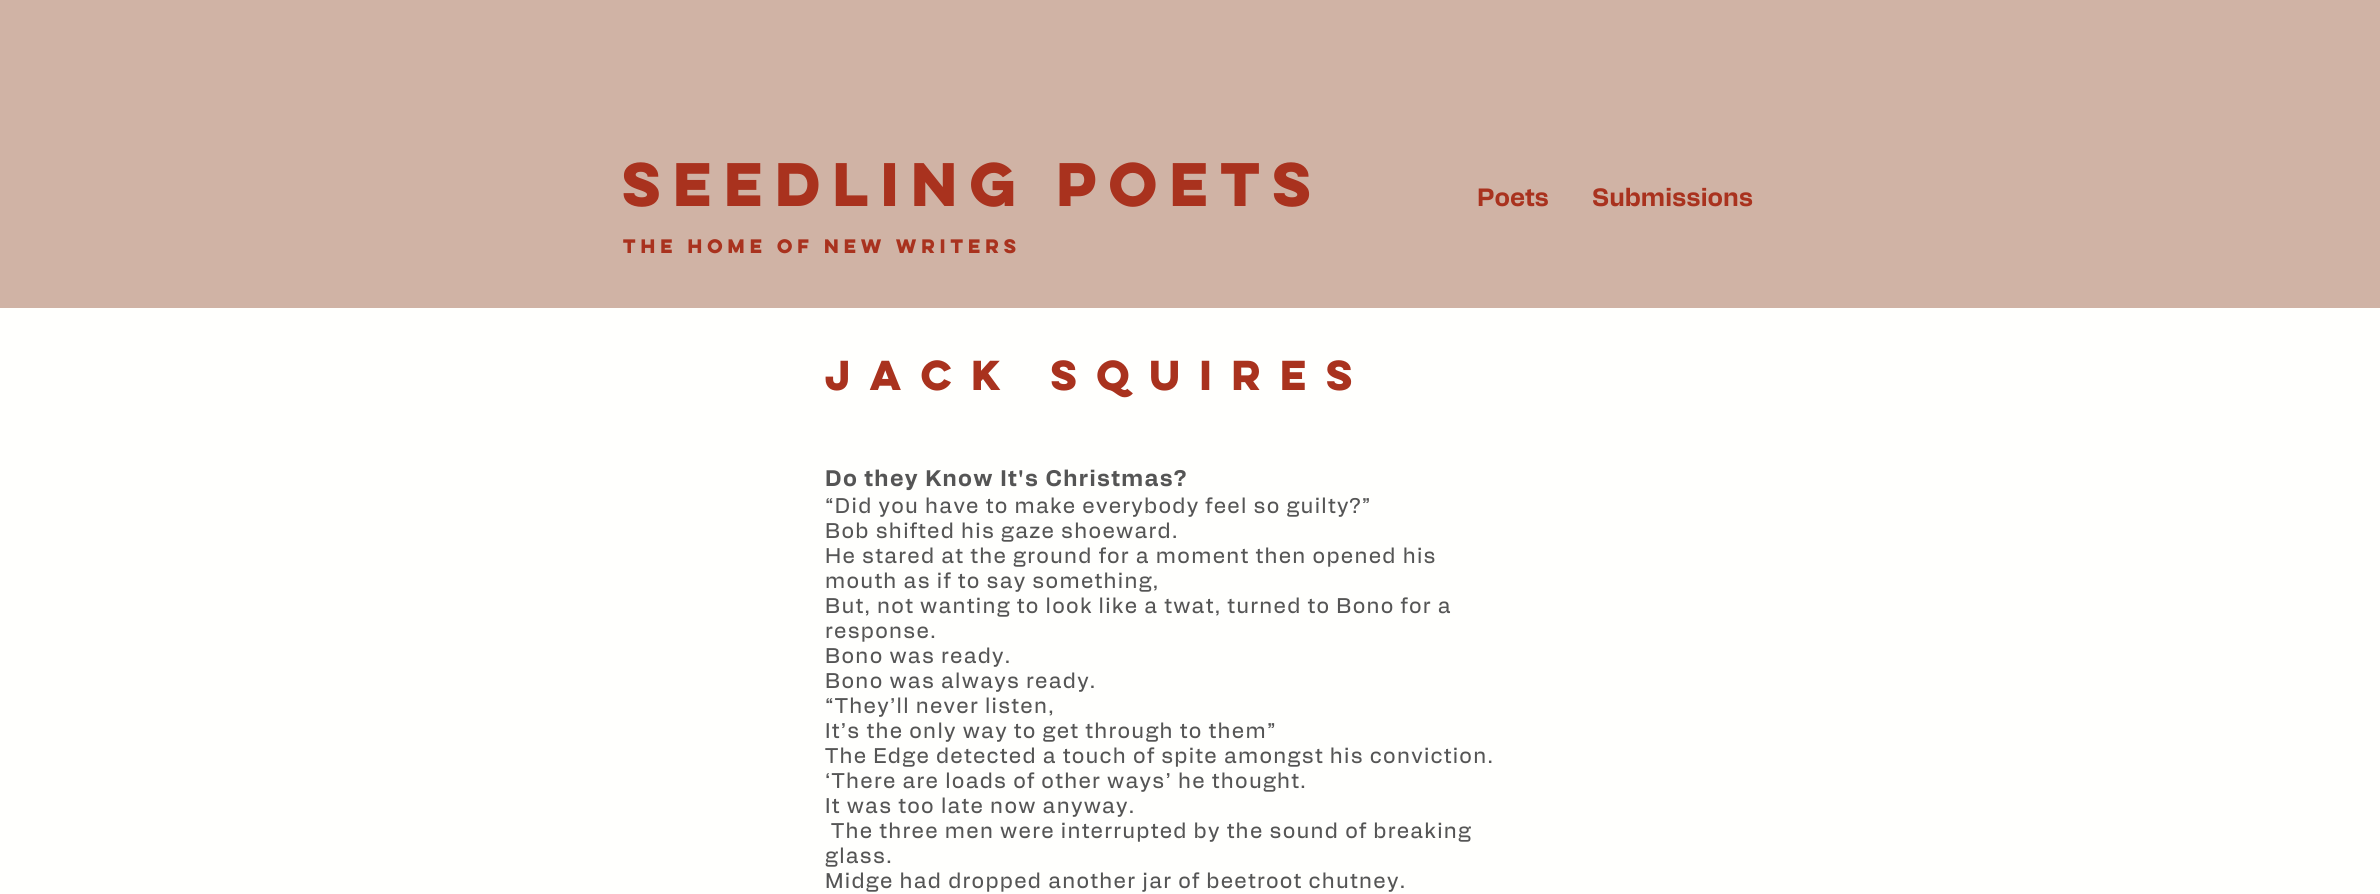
#include <cairo.h>
#include <math.h>
#include <stddef.h>


static void spaced_text(cairo_t *cr, double x, double y, const char *s, double letter, double word) {
    cairo_move_to(cr, x, y);
    while (*s) {
        char ch[5] = {0};
        int n = 0;
        do ch[n++] = *s++; while ((*s & 0xC0) == 0x80);
        cairo_show_text(cr, ch);
        cairo_rel_move_to(cr, letter + word * (*ch == ' '), 0);
    }
}

int main(void) {
    cairo_surface_t *surface = cairo_image_surface_create(CAIRO_FORMAT_RGB24, 2380, 894);
    cairo_t *cr = cairo_create(surface);
    cairo_font_options_t *options = cairo_font_options_create();
    cairo_font_options_set_hint_metrics(options, CAIRO_HINT_METRICS_OFF);
    cairo_font_options_set_hint_style(options, CAIRO_HINT_STYLE_NONE);
    cairo_set_font_options(cr, options);
    cairo_set_miter_limit(cr, 4);
    cairo_set_source_rgb(cr, 1, 1, 0.992);
    cairo_paint(cr);
    cairo_set_source_rgb(cr, 0.816, 0.702, 0.647);
    cairo_rectangle(cr, 0, 0, 2380, 308);
    cairo_fill(cr);
    cairo_select_font_face(cr, "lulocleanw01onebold", CAIRO_FONT_SLANT_NORMAL, CAIRO_FONT_WEIGHT_BOLD);
    cairo_set_font_size(cr, 55);
    cairo_set_source_rgb(cr, 0.663, 0.196, 0.118);
    cairo_move_to(cr, 622, 206);
    cairo_show_text(cr, "SEEDLING POETS");
    cairo_select_font_face(cr, "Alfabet", CAIRO_FONT_SLANT_NORMAL, CAIRO_FONT_WEIGHT_BOLD);
    cairo_set_font_size(cr, 25);
    cairo_move_to(cr, 1477, 206);
    cairo_show_text(cr, "Poets");
    cairo_move_to(cr, 1592, 206);
    cairo_show_text(cr, "Submissions");
    cairo_select_font_face(cr, "lulocleanw01onebold", CAIRO_FONT_SLANT_NORMAL, CAIRO_FONT_WEIGHT_BOLD);
    cairo_set_font_size(cr, 17.5);
    spaced_text(cr, 623, 253, "The home of new writers", 1.05, 0);
    cairo_set_font_size(cr, 37.5);
    spaced_text(cr, 825, 390, "Jack Squires", 11.25, 0);
    cairo_select_font_face(cr, "Alfabet", CAIRO_FONT_SLANT_NORMAL, CAIRO_FONT_WEIGHT_BOLD);
    cairo_set_font_size(cr, 22.5);
    cairo_set_source_rgb(cr, 0.333, 0.333, 0.333);
    spaced_text(cr, 825, 486, "Do they Know It's Christmas?", 1.35, 0);
    cairo_select_font_face(cr, "Alfabet", CAIRO_FONT_SLANT_NORMAL, CAIRO_FONT_WEIGHT_NORMAL);
    cairo_set_font_size(cr, 21.25);
    spaced_text(cr, 825, 513, "“Did you have to make everybody feel so guilty?”", 1.27, 0);
    spaced_text(cr, 825, 538, "Bob shifted his gaze shoeward.", 1.27, 0);
    spaced_text(cr, 825, 563, "He stared at the ground for a moment then opened his", 1.27, 0);
    spaced_text(cr, 825, 588, "mouth as if to say something,", 1.27, 0);
    spaced_text(cr, 825, 613, "But, not wanting to look like a twat, turned to Bono for a", 1.27, 0);
    spaced_text(cr, 825, 638, "response.", 1.27, 0);
    spaced_text(cr, 825, 663, "Bono was ready.", 1.27, 0);
    spaced_text(cr, 825, 688, "Bono was always ready.", 1.27, 0);
    spaced_text(cr, 825, 713, "“They’ll never listen,", 1.27, 0);
    spaced_text(cr, 825, 738, "It’s the only way to get through to them”", 1.27, 0);
    spaced_text(cr, 825, 763, "The Edge detected a touch of spite amongst his conviction.", 1.27, 0);
    spaced_text(cr, 825, 788, "‘There are loads of other ways’ he thought.", 1.27, 0);
    spaced_text(cr, 825, 813, "It was too late now anyway.", 1.27, 0);
    spaced_text(cr, 831, 838, "The three men were interrupted by the sound of breaking", 1.27, 0);
    spaced_text(cr, 825, 863, "glass.", 1.27, 0);
    spaced_text(cr, 825, 888, "Midge had dropped another jar of beetroot chutney.", 1.27, 0);
    cairo_surface_write_to_png(surface, "page.png");
    cairo_font_options_destroy(options);
    cairo_destroy(cr);
    cairo_surface_destroy(surface);
    return 0;
}
